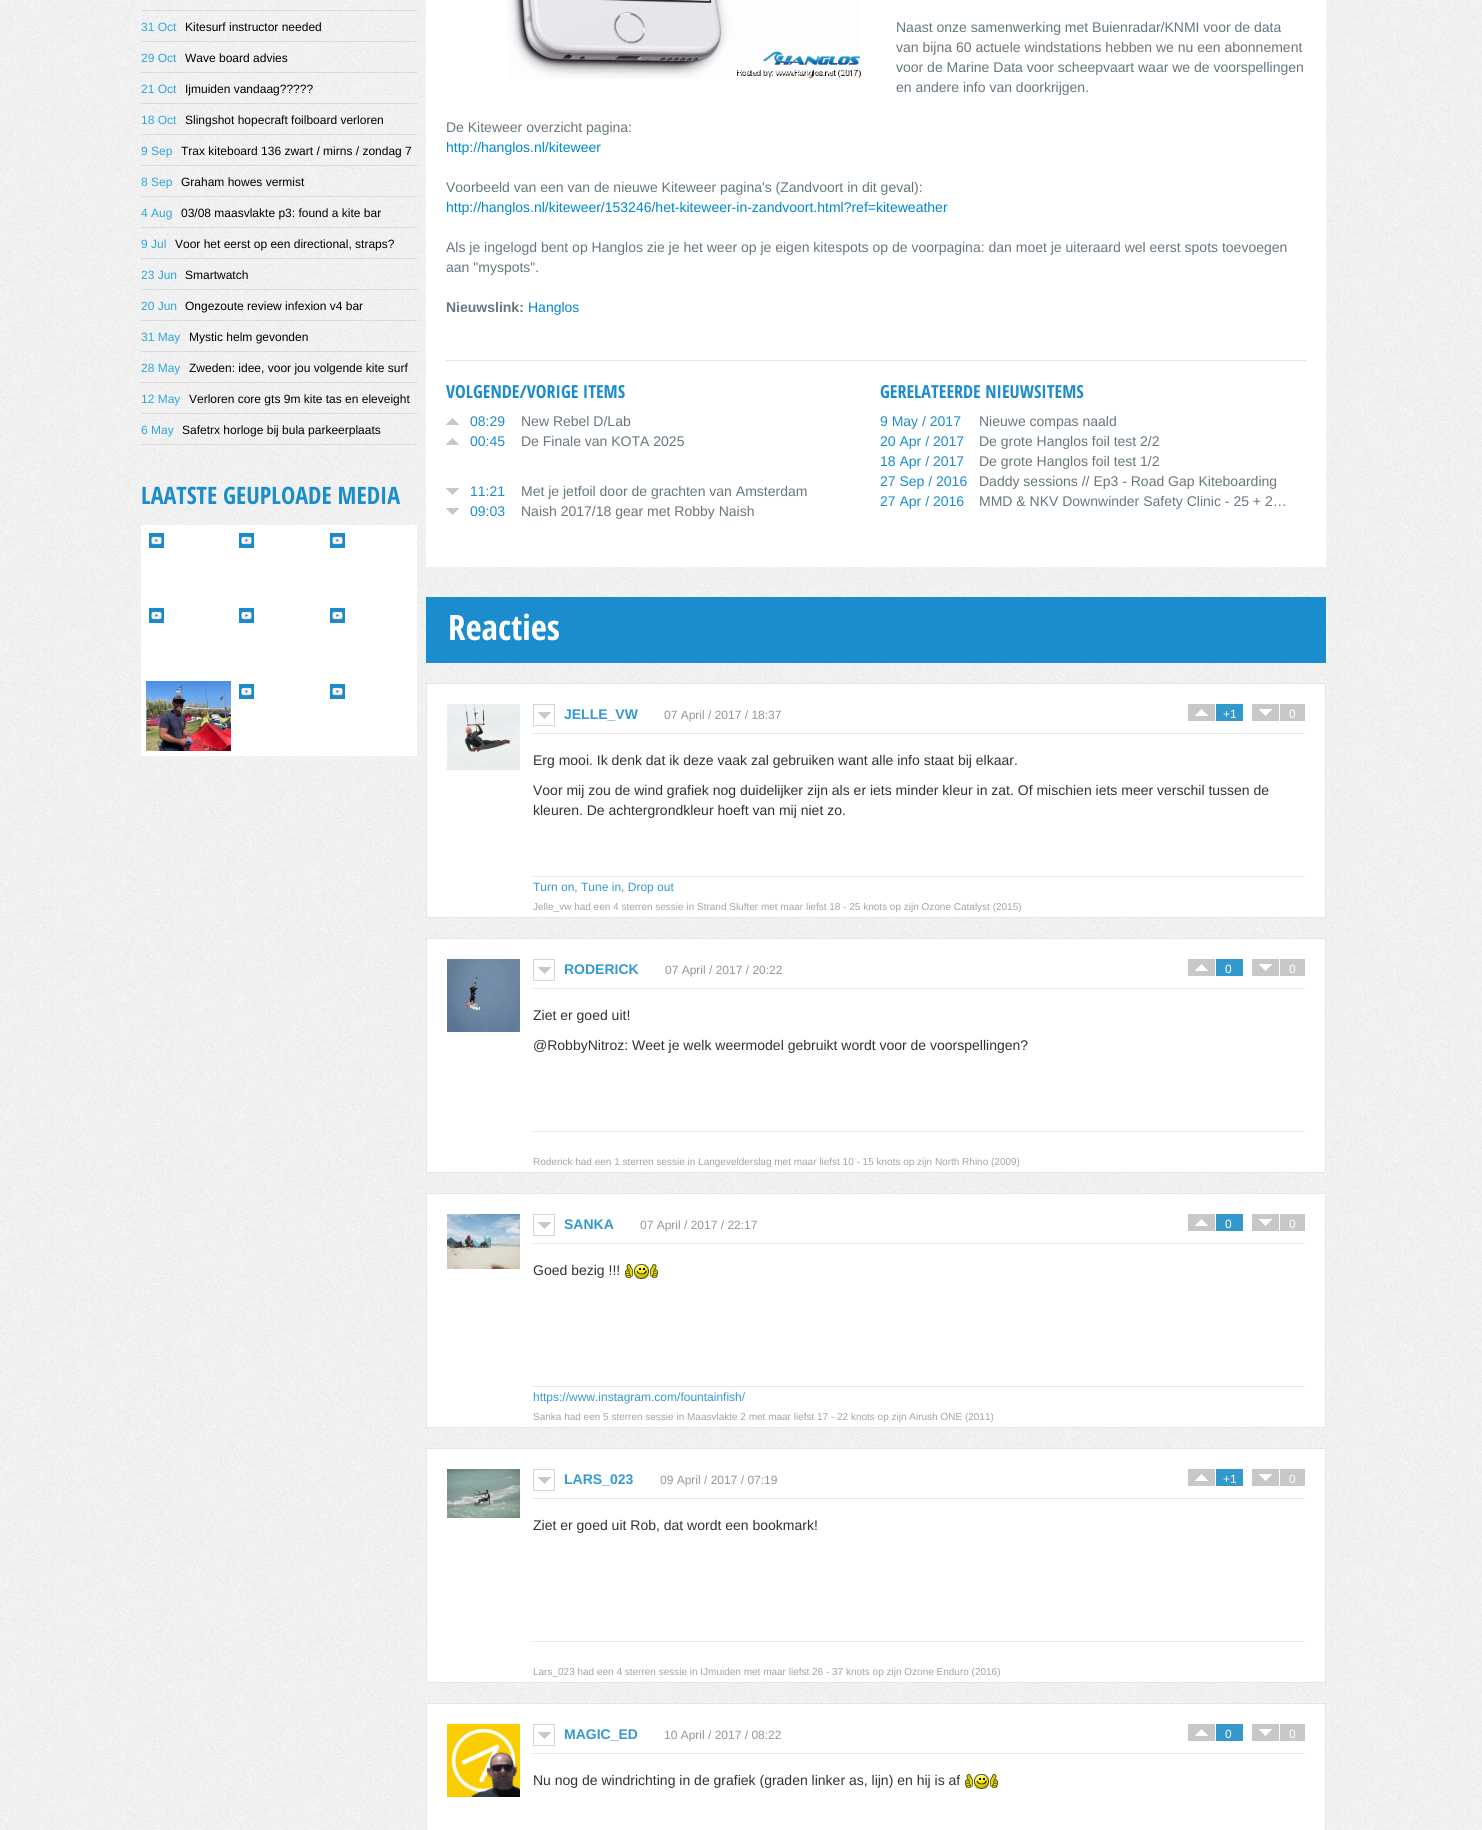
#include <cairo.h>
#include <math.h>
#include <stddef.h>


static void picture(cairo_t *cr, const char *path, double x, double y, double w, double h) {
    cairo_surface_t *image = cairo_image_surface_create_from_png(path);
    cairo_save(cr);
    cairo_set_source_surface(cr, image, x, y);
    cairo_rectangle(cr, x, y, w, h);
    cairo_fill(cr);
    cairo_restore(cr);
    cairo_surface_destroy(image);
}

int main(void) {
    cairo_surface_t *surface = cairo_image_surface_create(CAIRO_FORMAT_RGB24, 1482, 1830);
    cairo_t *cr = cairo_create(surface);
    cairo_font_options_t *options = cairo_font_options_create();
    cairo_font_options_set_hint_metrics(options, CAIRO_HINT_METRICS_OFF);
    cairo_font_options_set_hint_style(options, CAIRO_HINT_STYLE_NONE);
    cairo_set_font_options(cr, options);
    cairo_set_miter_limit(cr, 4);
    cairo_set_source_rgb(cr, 1, 1, 1);
    cairo_paint(cr);
    picture(cr, "img1.png", 0, 0, 1482, 1830);
    cairo_set_source_rgb(cr, 0.855, 0.855, 0.855);
    cairo_rectangle(cr, 141, 10, 276, 1);
    cairo_fill(cr);
    cairo_rectangle(cr, 141, 41, 276, 1);
    cairo_fill(cr);
    cairo_select_font_face(cr, "Liberation Sans", CAIRO_FONT_SLANT_NORMAL, CAIRO_FONT_WEIGHT_NORMAL);
    cairo_set_font_size(cr, 12);
    cairo_set_source_rgb(cr, 0.18, 0.647, 0.875);
    cairo_move_to(cr, 141, 31);
    cairo_show_text(cr, "31 Oct");
    cairo_set_source_rgb(cr, 0, 0, 0);
    cairo_move_to(cr, 185, 31);
    cairo_show_text(cr, "Kitesurf instructor needed");
    cairo_set_source_rgb(cr, 0.855, 0.855, 0.855);
    cairo_rectangle(cr, 141, 72, 276, 1);
    cairo_fill(cr);
    cairo_set_source_rgb(cr, 0.18, 0.647, 0.875);
    cairo_move_to(cr, 141, 62);
    cairo_show_text(cr, "29 Oct");
    cairo_set_source_rgb(cr, 0, 0, 0);
    cairo_move_to(cr, 185, 62);
    cairo_show_text(cr, "Wave board advies");
    cairo_set_source_rgb(cr, 0.855, 0.855, 0.855);
    cairo_rectangle(cr, 141, 103, 276, 1);
    cairo_fill(cr);
    cairo_set_source_rgb(cr, 0.18, 0.647, 0.875);
    cairo_move_to(cr, 141, 93);
    cairo_show_text(cr, "21 Oct");
    cairo_set_source_rgb(cr, 0, 0, 0);
    cairo_move_to(cr, 185, 93);
    cairo_show_text(cr, "Ijmuiden vandaag?\077?\077?");
    cairo_set_source_rgb(cr, 0.855, 0.855, 0.855);
    cairo_rectangle(cr, 141, 134, 276, 1);
    cairo_fill(cr);
    cairo_set_source_rgb(cr, 0.18, 0.647, 0.875);
    cairo_move_to(cr, 141, 124);
    cairo_show_text(cr, "18 Oct");
    cairo_set_source_rgb(cr, 0, 0, 0);
    cairo_move_to(cr, 185, 124);
    cairo_show_text(cr, "Slingshot hopecraft foilboard verloren");
    cairo_set_source_rgb(cr, 0.855, 0.855, 0.855);
    cairo_rectangle(cr, 141, 165, 276, 1);
    cairo_fill(cr);
    cairo_set_source_rgb(cr, 0.18, 0.647, 0.875);
    cairo_move_to(cr, 141, 155);
    cairo_show_text(cr, "9 Sep");
    cairo_set_source_rgb(cr, 0, 0, 0);
    cairo_move_to(cr, 181, 155);
    cairo_show_text(cr, "Trax kiteboard 136 zwart / mirns / zondag 7");
    cairo_set_source_rgb(cr, 0.855, 0.855, 0.855);
    cairo_rectangle(cr, 141, 196, 276, 1);
    cairo_fill(cr);
    cairo_set_source_rgb(cr, 0.18, 0.647, 0.875);
    cairo_move_to(cr, 141, 186);
    cairo_show_text(cr, "8 Sep");
    cairo_set_source_rgb(cr, 0, 0, 0);
    cairo_move_to(cr, 181, 186);
    cairo_show_text(cr, "Graham howes vermist");
    cairo_set_source_rgb(cr, 0.855, 0.855, 0.855);
    cairo_rectangle(cr, 141, 227, 276, 1);
    cairo_fill(cr);
    cairo_set_source_rgb(cr, 0.18, 0.647, 0.875);
    cairo_move_to(cr, 141, 217);
    cairo_show_text(cr, "4 Aug");
    cairo_set_source_rgb(cr, 0, 0, 0);
    cairo_move_to(cr, 181, 217);
    cairo_show_text(cr, "03/08 maasvlakte p3: found a kite bar");
    cairo_set_source_rgb(cr, 0.855, 0.855, 0.855);
    cairo_rectangle(cr, 141, 258, 276, 1);
    cairo_fill(cr);
    cairo_set_source_rgb(cr, 0.18, 0.647, 0.875);
    cairo_move_to(cr, 141, 248);
    cairo_show_text(cr, "9 Jul");
    cairo_set_source_rgb(cr, 0, 0, 0);
    cairo_move_to(cr, 175, 248);
    cairo_show_text(cr, "Voor het eerst op een directional, straps?");
    cairo_set_source_rgb(cr, 0.855, 0.855, 0.855);
    cairo_rectangle(cr, 141, 289, 276, 1);
    cairo_fill(cr);
    cairo_set_source_rgb(cr, 0.18, 0.647, 0.875);
    cairo_move_to(cr, 141, 279);
    cairo_show_text(cr, "23 Jun");
    cairo_set_source_rgb(cr, 0, 0, 0);
    cairo_move_to(cr, 185, 279);
    cairo_show_text(cr, "Smartwatch");
    cairo_set_source_rgb(cr, 0.855, 0.855, 0.855);
    cairo_rectangle(cr, 141, 320, 276, 1);
    cairo_fill(cr);
    cairo_set_source_rgb(cr, 0.18, 0.647, 0.875);
    cairo_move_to(cr, 141, 310);
    cairo_show_text(cr, "20 Jun");
    cairo_set_source_rgb(cr, 0, 0, 0);
    cairo_move_to(cr, 185, 310);
    cairo_show_text(cr, "Ongezoute review infexion v4 bar");
    cairo_set_source_rgb(cr, 0.855, 0.855, 0.855);
    cairo_rectangle(cr, 141, 351, 276, 1);
    cairo_fill(cr);
    cairo_set_source_rgb(cr, 0.18, 0.647, 0.875);
    cairo_move_to(cr, 141, 341);
    cairo_show_text(cr, "31 May");
    cairo_set_source_rgb(cr, 0, 0, 0);
    cairo_move_to(cr, 189, 341);
    cairo_show_text(cr, "Mystic helm gevonden");
    cairo_set_source_rgb(cr, 0.855, 0.855, 0.855);
    cairo_rectangle(cr, 141, 382, 276, 1);
    cairo_fill(cr);
    cairo_set_source_rgb(cr, 0.18, 0.647, 0.875);
    cairo_move_to(cr, 141, 372);
    cairo_show_text(cr, "28 May");
    cairo_set_source_rgb(cr, 0, 0, 0);
    cairo_move_to(cr, 189, 372);
    cairo_show_text(cr, "Zweden: idee, voor jou volgende kite surf");
    cairo_set_source_rgb(cr, 0.855, 0.855, 0.855);
    cairo_rectangle(cr, 141, 413, 276, 1);
    cairo_fill(cr);
    cairo_set_source_rgb(cr, 0.18, 0.647, 0.875);
    cairo_move_to(cr, 141, 403);
    cairo_show_text(cr, "12 May");
    cairo_set_source_rgb(cr, 0, 0, 0);
    cairo_move_to(cr, 189, 403);
    cairo_show_text(cr, "Verloren core gts 9m kite tas en eleveight");
    cairo_set_source_rgb(cr, 0.855, 0.855, 0.855);
    cairo_rectangle(cr, 141, 444, 276, 1);
    cairo_fill(cr);
    cairo_set_source_rgb(cr, 0.18, 0.647, 0.875);
    cairo_move_to(cr, 141, 434);
    cairo_show_text(cr, "6 May");
    cairo_set_source_rgb(cr, 0, 0, 0);
    cairo_move_to(cr, 182, 434);
    cairo_show_text(cr, "Safetrx horloge bij bula parkeerplaats");
    cairo_select_font_face(cr, "Open Sans Condensed", CAIRO_FONT_SLANT_NORMAL, CAIRO_FONT_WEIGHT_BOLD);
    cairo_set_font_size(cr, 24);
    cairo_set_source_rgb(cr, 0.106, 0.549, 0.804);
    cairo_move_to(cr, 141, 504);
    cairo_show_text(cr, "LAATSTE GEUPLOADE MEDIA");
    cairo_set_source_rgb(cr, 1, 1, 1);
    cairo_rectangle(cr, 141, 525, 276, 231);
    cairo_fill(cr);
    picture(cr, "img2.png", 149, 533, 15, 15);
    picture(cr, "img2.png", 239, 533, 15, 15);
    picture(cr, "img2.png", 330, 533, 15, 15);
    picture(cr, "img2.png", 149, 608, 15, 15);
    picture(cr, "img2.png", 239, 608, 15, 15);
    picture(cr, "img2.png", 330, 608, 15, 15);
    picture(cr, "img3.png", 146, 681, 85, 70);
    picture(cr, "img2.png", 239, 684, 15, 15);
    picture(cr, "img2.png", 330, 684, 15, 15);
    cairo_rectangle(cr, 426, 0, 900, 567);
    cairo_fill(cr);
    picture(cr, "img4.png", 507, 0, 354, 79);
    cairo_select_font_face(cr, "Liberation Sans", CAIRO_FONT_SLANT_NORMAL, CAIRO_FONT_WEIGHT_NORMAL);
    cairo_set_font_size(cr, 14);
    cairo_set_source_rgb(cr, 0.408, 0.467, 0.494);
    cairo_move_to(cr, 896, 32);
    cairo_show_text(cr, "Naast onze samenwerking met Buienradar/KNMI voor de data");
    cairo_move_to(cr, 896, 52);
    cairo_show_text(cr, "van bijna 60 actuele windstations hebben we nu een abonnement");
    cairo_move_to(cr, 896, 72);
    cairo_show_text(cr, "voor de Marine Data voor scheepvaart waar we de voorspellingen");
    cairo_move_to(cr, 896, 92);
    cairo_show_text(cr, "en andere info van doorkrijgen.");
    cairo_move_to(cr, 446, 132);
    cairo_show_text(cr, "De Kiteweer overzicht pagina:");
    cairo_set_source_rgb(cr, 0, 0.533, 0.8);
    cairo_move_to(cr, 446, 152);
    cairo_show_text(cr, "http://hanglos.nl/kiteweer");
    cairo_set_source_rgb(cr, 0.408, 0.467, 0.494);
    cairo_move_to(cr, 446, 192);
    cairo_show_text(cr, "Voorbeeld van een van de nieuwe Kiteweer pagina's (Zandvoort in dit geval):");
    cairo_set_source_rgb(cr, 0, 0.533, 0.8);
    cairo_move_to(cr, 446, 212);
    cairo_show_text(cr, "http://hanglos.nl/kiteweer/153246/het-kiteweer-in-zandvoort.html?ref=kiteweather");
    cairo_set_source_rgb(cr, 0.408, 0.467, 0.494);
    cairo_move_to(cr, 446, 252);
    cairo_show_text(cr, "Als je ingelogd bent op Hanglos zie je het weer op je eigen kitespots op de voorpagina: dan moet je uiteraard wel eerst spots toevoegen");
    cairo_move_to(cr, 446, 272);
    cairo_show_text(cr, "aan \"myspots\".");
    cairo_select_font_face(cr, "Liberation Sans", CAIRO_FONT_SLANT_NORMAL, CAIRO_FONT_WEIGHT_BOLD);
    cairo_move_to(cr, 446, 312);
    cairo_show_text(cr, "Nieuwslink:");
    cairo_select_font_face(cr, "Liberation Sans", CAIRO_FONT_SLANT_NORMAL, CAIRO_FONT_WEIGHT_NORMAL);
    cairo_set_source_rgb(cr, 0, 0.533, 0.8);
    cairo_move_to(cr, 528, 312);
    cairo_show_text(cr, "Hanglos");
    cairo_set_source_rgb(cr, 0.902, 0.902, 0.902);
    cairo_rectangle(cr, 446, 360, 860, 1);
    cairo_fill(cr);
    cairo_select_font_face(cr, "Open Sans Condensed", CAIRO_FONT_SLANT_NORMAL, CAIRO_FONT_WEIGHT_BOLD);
    cairo_set_font_size(cr, 18);
    cairo_set_source_rgb(cr, 0.106, 0.549, 0.804);
    cairo_move_to(cr, 446, 398);
    cairo_show_text(cr, "VOLGENDE/VORIGE ITEMS");
    picture(cr, "img5.png", 446, 418, 13, 7);
    cairo_select_font_face(cr, "Liberation Sans", CAIRO_FONT_SLANT_NORMAL, CAIRO_FONT_WEIGHT_NORMAL);
    cairo_set_font_size(cr, 14);
    cairo_move_to(cr, 470, 426);
    cairo_show_text(cr, "08:29");
    cairo_set_source_rgb(cr, 0.408, 0.467, 0.494);
    cairo_move_to(cr, 521, 426);
    cairo_show_text(cr, "New Rebel D/Lab");
    picture(cr, "img5.png", 446, 438, 13, 7);
    cairo_set_source_rgb(cr, 0.106, 0.549, 0.804);
    cairo_move_to(cr, 470, 446);
    cairo_show_text(cr, "00:45");
    cairo_set_source_rgb(cr, 0.408, 0.467, 0.494);
    cairo_move_to(cr, 521, 446);
    cairo_show_text(cr, "De Finale van KOTA 2025");
    picture(cr, "img6.png", 446, 488, 13, 7);
    cairo_set_source_rgb(cr, 0.106, 0.549, 0.804);
    cairo_move_to(cr, 470, 496);
    cairo_show_text(cr, "11:21");
    cairo_set_source_rgb(cr, 0.408, 0.467, 0.494);
    cairo_move_to(cr, 521, 496);
    cairo_show_text(cr, "Met je jetfoil door de grachten van Amsterdam");
    picture(cr, "img6.png", 446, 508, 13, 7);
    cairo_set_source_rgb(cr, 0.106, 0.549, 0.804);
    cairo_move_to(cr, 470, 516);
    cairo_show_text(cr, "09:03");
    cairo_set_source_rgb(cr, 0.408, 0.467, 0.494);
    cairo_move_to(cr, 521, 516);
    cairo_show_text(cr, "Naish 2017/18 gear met Robby Naish");
    cairo_select_font_face(cr, "Open Sans Condensed", CAIRO_FONT_SLANT_NORMAL, CAIRO_FONT_WEIGHT_BOLD);
    cairo_set_font_size(cr, 18);
    cairo_set_source_rgb(cr, 0.106, 0.549, 0.804);
    cairo_move_to(cr, 880, 398);
    cairo_show_text(cr, "GERELATEERDE NIEUWSITEMS");
    cairo_select_font_face(cr, "Liberation Sans", CAIRO_FONT_SLANT_NORMAL, CAIRO_FONT_WEIGHT_NORMAL);
    cairo_set_font_size(cr, 14);
    cairo_move_to(cr, 880, 426);
    cairo_show_text(cr, "9 May / 2017");
    cairo_set_source_rgb(cr, 0.408, 0.467, 0.494);
    cairo_move_to(cr, 979, 426);
    cairo_show_text(cr, "Nieuwe compas naald");
    cairo_set_source_rgb(cr, 0.106, 0.549, 0.804);
    cairo_move_to(cr, 880, 446);
    cairo_show_text(cr, "20 Apr / 2017");
    cairo_set_source_rgb(cr, 0.408, 0.467, 0.494);
    cairo_move_to(cr, 979, 446);
    cairo_show_text(cr, "De grote Hanglos foil test 2/2");
    cairo_set_source_rgb(cr, 0.106, 0.549, 0.804);
    cairo_move_to(cr, 880, 466);
    cairo_show_text(cr, "18 Apr / 2017");
    cairo_set_source_rgb(cr, 0.408, 0.467, 0.494);
    cairo_move_to(cr, 979, 466);
    cairo_show_text(cr, "De grote Hanglos foil test 1/2");
    cairo_set_source_rgb(cr, 0.106, 0.549, 0.804);
    cairo_move_to(cr, 880, 486);
    cairo_show_text(cr, "27 Sep / 2016");
    cairo_set_source_rgb(cr, 0.408, 0.467, 0.494);
    cairo_move_to(cr, 979, 486);
    cairo_show_text(cr, "Daddy sessions // Ep3 - Road Gap Kiteboarding");
    cairo_set_source_rgb(cr, 0.106, 0.549, 0.804);
    cairo_move_to(cr, 880, 506);
    cairo_show_text(cr, "27 Apr / 2016");
    cairo_set_source_rgb(cr, 0.408, 0.467, 0.494);
    cairo_move_to(cr, 979, 506);
    cairo_show_text(cr, "MMD & NKV Downwinder Safety Clinic - 25 + 2…");
    cairo_set_source_rgb(cr, 0.106, 0.549, 0.808);
    cairo_rectangle(cr, 426, 597, 900, 66);
    cairo_fill(cr);
    cairo_select_font_face(cr, "Open Sans Condensed", CAIRO_FONT_SLANT_NORMAL, CAIRO_FONT_WEIGHT_BOLD);
    cairo_set_font_size(cr, 35);
    cairo_set_source_rgb(cr, 1, 1, 1);
    cairo_move_to(cr, 448, 640);
    cairo_show_text(cr, "Reacties");
    cairo_rectangle(cr, 426.5, 683.5, 899, 234);
    cairo_fill_preserve(cr);
    cairo_set_source_rgb(cr, 0.902, 0.902, 0.902);
    cairo_set_line_width(cr, 1);
    cairo_stroke(cr);
    picture(cr, "img7.png", 447, 704, 73, 66);
    cairo_rectangle(cr, 533, 733, 772, 1);
    cairo_fill(cr);
    picture(cr, "img6.png", 538, 712, 13, 7);
    cairo_rectangle(cr, 533.5, 704.5, 21, 21);
    cairo_set_source_rgb(cr, 0.839, 0.839, 0.839);
    cairo_stroke(cr);
    cairo_select_font_face(cr, "Liberation Sans", CAIRO_FONT_SLANT_NORMAL, CAIRO_FONT_WEIGHT_BOLD);
    cairo_set_font_size(cr, 14);
    cairo_set_source_rgb(cr, 0.204, 0.596, 0.82);
    cairo_move_to(cr, 564, 719);
    cairo_show_text(cr, "JELLE_VW");
    cairo_select_font_face(cr, "Liberation Sans", CAIRO_FONT_SLANT_NORMAL, CAIRO_FONT_WEIGHT_NORMAL);
    cairo_set_font_size(cr, 12);
    cairo_set_source_rgb(cr, 0.557, 0.596, 0.612);
    cairo_move_to(cr, 664, 719);
    cairo_show_text(cr, "07 April / 2017 / 18:37");
    cairo_set_source_rgb(cr, 0.784, 0.784, 0.784);
    cairo_rectangle(cr, 1188, 704, 27, 17);
    cairo_fill(cr);
    picture(cr, "img8.png", 1195, 709, 13, 7);
    cairo_set_source_rgb(cr, 0.2, 0.6, 0.8);
    cairo_rectangle(cr, 1216, 704, 27, 17);
    cairo_fill(cr);
    cairo_set_source_rgb(cr, 1, 1, 1);
    cairo_move_to(cr, 1223, 718);
    cairo_show_text(cr, "+");
    cairo_move_to(cr, 1230, 718);
    cairo_show_text(cr, "1");
    cairo_set_source_rgb(cr, 0.784, 0.784, 0.784);
    cairo_rectangle(cr, 1252, 704, 27, 17);
    cairo_fill(cr);
    picture(cr, "img9.png", 1259, 709, 13, 7);
    cairo_rectangle(cr, 1280, 704, 25, 17);
    cairo_fill(cr);
    cairo_set_source_rgb(cr, 1, 1, 1);
    cairo_move_to(cr, 1289, 718);
    cairo_show_text(cr, "0");
    cairo_set_font_size(cr, 14);
    cairo_set_source_rgb(cr, 0.2, 0.2, 0.2);
    cairo_move_to(cr, 533, 765);
    cairo_show_text(cr, "Erg mooi. Ik denk dat ik deze vaak zal gebruiken want alle info staat bij elkaar.");
    cairo_move_to(cr, 533, 795);
    cairo_show_text(cr, "Voor mij zou de wind grafiek nog duidelijker zijn als er iets minder kleur in zat. Of mischien iets meer verschil tussen de");
    cairo_move_to(cr, 533, 815);
    cairo_show_text(cr, "kleuren. De achtergrondkleur hoeft van mij niet zo.");
    cairo_set_source_rgb(cr, 0.902, 0.902, 0.902);
    cairo_rectangle(cr, 533, 876, 772, 1);
    cairo_fill(cr);
    cairo_set_font_size(cr, 12);
    cairo_set_source_rgb(cr, 0.204, 0.596, 0.82);
    cairo_move_to(cr, 533, 891);
    cairo_show_text(cr, "Turn on, Tune in, Drop out");
    cairo_set_font_size(cr, 10);
    cairo_set_source_rgb(cr, 0.616, 0.651, 0.663);
    cairo_move_to(cr, 533, 910);
    cairo_show_text(cr, "Jelle_vw had een 4 sterren sessie in Strand Slufter met maar liefst 18 - 25 knots op zijn Ozone Catalyst (2015)");
    cairo_set_source_rgb(cr, 1, 1, 1);
    cairo_rectangle(cr, 426.5, 938.5, 899, 234);
    cairo_fill_preserve(cr);
    cairo_set_source_rgb(cr, 0.902, 0.902, 0.902);
    cairo_stroke(cr);
    picture(cr, "img10.png", 447, 959, 73, 73);
    cairo_rectangle(cr, 533, 988, 772, 1);
    cairo_fill(cr);
    picture(cr, "img6.png", 538, 967, 13, 7);
    cairo_rectangle(cr, 533.5, 959.5, 21, 21);
    cairo_set_source_rgb(cr, 0.839, 0.839, 0.839);
    cairo_stroke(cr);
    cairo_select_font_face(cr, "Liberation Sans", CAIRO_FONT_SLANT_NORMAL, CAIRO_FONT_WEIGHT_BOLD);
    cairo_set_font_size(cr, 14);
    cairo_set_source_rgb(cr, 0.204, 0.596, 0.82);
    cairo_move_to(cr, 564, 974);
    cairo_show_text(cr, "RODERICK");
    cairo_select_font_face(cr, "Liberation Sans", CAIRO_FONT_SLANT_NORMAL, CAIRO_FONT_WEIGHT_NORMAL);
    cairo_set_font_size(cr, 12);
    cairo_set_source_rgb(cr, 0.557, 0.596, 0.612);
    cairo_move_to(cr, 665, 974);
    cairo_show_text(cr, "07 April / 2017 / 20:22");
    cairo_set_source_rgb(cr, 0.784, 0.784, 0.784);
    cairo_rectangle(cr, 1188, 959, 27, 17);
    cairo_fill(cr);
    picture(cr, "img8.png", 1195, 964, 13, 7);
    cairo_set_source_rgb(cr, 0.2, 0.6, 0.8);
    cairo_rectangle(cr, 1216, 959, 27, 17);
    cairo_fill(cr);
    cairo_set_source_rgb(cr, 1, 1, 1);
    cairo_move_to(cr, 1225, 973);
    cairo_show_text(cr, "0");
    cairo_set_source_rgb(cr, 0.784, 0.784, 0.784);
    cairo_rectangle(cr, 1252, 959, 27, 17);
    cairo_fill(cr);
    picture(cr, "img9.png", 1259, 964, 13, 7);
    cairo_rectangle(cr, 1280, 959, 25, 17);
    cairo_fill(cr);
    cairo_set_source_rgb(cr, 1, 1, 1);
    cairo_move_to(cr, 1289, 973);
    cairo_show_text(cr, "0");
    cairo_set_font_size(cr, 14);
    cairo_set_source_rgb(cr, 0.2, 0.2, 0.2);
    cairo_move_to(cr, 533, 1020);
    cairo_show_text(cr, "Ziet er goed uit!");
    cairo_move_to(cr, 533, 1050);
    cairo_show_text(cr, "@RobbyNitroz: Weet je welk weermodel gebruikt wordt voor de voorspellingen?");
    cairo_set_source_rgb(cr, 0.902, 0.902, 0.902);
    cairo_rectangle(cr, 533, 1131, 772, 1);
    cairo_fill(cr);
    cairo_set_font_size(cr, 10);
    cairo_set_source_rgb(cr, 0.616, 0.651, 0.663);
    cairo_move_to(cr, 533, 1165);
    cairo_show_text(cr, "Roderick had een 1 sterren sessie in Langevelderslag met maar liefst 10 - 15 knots op zijn North Rhino (2009)");
    cairo_set_source_rgb(cr, 1, 1, 1);
    cairo_rectangle(cr, 426.5, 1193.5, 899, 234);
    cairo_fill_preserve(cr);
    cairo_set_source_rgb(cr, 0.902, 0.902, 0.902);
    cairo_stroke(cr);
    picture(cr, "img11.png", 447, 1214, 73, 55);
    cairo_rectangle(cr, 533, 1243, 772, 1);
    cairo_fill(cr);
    picture(cr, "img6.png", 538, 1222, 13, 7);
    cairo_rectangle(cr, 533.5, 1214.5, 21, 21);
    cairo_set_source_rgb(cr, 0.839, 0.839, 0.839);
    cairo_stroke(cr);
    cairo_select_font_face(cr, "Liberation Sans", CAIRO_FONT_SLANT_NORMAL, CAIRO_FONT_WEIGHT_BOLD);
    cairo_set_font_size(cr, 14);
    cairo_set_source_rgb(cr, 0.204, 0.596, 0.82);
    cairo_move_to(cr, 564, 1229);
    cairo_show_text(cr, "SANKA");
    cairo_select_font_face(cr, "Liberation Sans", CAIRO_FONT_SLANT_NORMAL, CAIRO_FONT_WEIGHT_NORMAL);
    cairo_set_font_size(cr, 12);
    cairo_set_source_rgb(cr, 0.557, 0.596, 0.612);
    cairo_move_to(cr, 640, 1229);
    cairo_show_text(cr, "07 April / 2017 / 22:17");
    cairo_set_source_rgb(cr, 0.784, 0.784, 0.784);
    cairo_rectangle(cr, 1188, 1214, 27, 17);
    cairo_fill(cr);
    picture(cr, "img8.png", 1195, 1219, 13, 7);
    cairo_set_source_rgb(cr, 0.2, 0.6, 0.8);
    cairo_rectangle(cr, 1216, 1214, 27, 17);
    cairo_fill(cr);
    cairo_set_source_rgb(cr, 1, 1, 1);
    cairo_move_to(cr, 1225, 1228);
    cairo_show_text(cr, "0");
    cairo_set_source_rgb(cr, 0.784, 0.784, 0.784);
    cairo_rectangle(cr, 1252, 1214, 27, 17);
    cairo_fill(cr);
    picture(cr, "img9.png", 1259, 1219, 13, 7);
    cairo_rectangle(cr, 1280, 1214, 25, 17);
    cairo_fill(cr);
    cairo_set_source_rgb(cr, 1, 1, 1);
    cairo_move_to(cr, 1289, 1228);
    cairo_show_text(cr, "0");
    cairo_set_font_size(cr, 14);
    cairo_set_source_rgb(cr, 0.2, 0.2, 0.2);
    cairo_move_to(cr, 533, 1275);
    cairo_show_text(cr, "Goed bezig !!!");
    picture(cr, "img12.png", 625, 1264, 33, 15);
    cairo_set_source_rgb(cr, 0.902, 0.902, 0.902);
    cairo_rectangle(cr, 533, 1386, 772, 1);
    cairo_fill(cr);
    cairo_set_font_size(cr, 12);
    cairo_set_source_rgb(cr, 0.204, 0.596, 0.82);
    cairo_move_to(cr, 533, 1401);
    cairo_show_text(cr, "https://www.instagram.com/fountainfish/");
    cairo_set_font_size(cr, 10);
    cairo_set_source_rgb(cr, 0.616, 0.651, 0.663);
    cairo_move_to(cr, 533, 1420);
    cairo_show_text(cr, "Sanka had een 5 sterren sessie in Maasvlakte 2 met maar liefst 17 - 22 knots op zijn Airush ONE (2011)");
    cairo_set_source_rgb(cr, 1, 1, 1);
    cairo_rectangle(cr, 426.5, 1448.5, 899, 234);
    cairo_fill_preserve(cr);
    cairo_set_source_rgb(cr, 0.902, 0.902, 0.902);
    cairo_stroke(cr);
    picture(cr, "img13.png", 447, 1469, 73, 49);
    cairo_rectangle(cr, 533, 1498, 772, 1);
    cairo_fill(cr);
    picture(cr, "img6.png", 538, 1477, 13, 7);
    cairo_rectangle(cr, 533.5, 1469.5, 21, 21);
    cairo_set_source_rgb(cr, 0.839, 0.839, 0.839);
    cairo_stroke(cr);
    cairo_select_font_face(cr, "Liberation Sans", CAIRO_FONT_SLANT_NORMAL, CAIRO_FONT_WEIGHT_BOLD);
    cairo_set_font_size(cr, 14);
    cairo_set_source_rgb(cr, 0.204, 0.596, 0.82);
    cairo_move_to(cr, 564, 1484);
    cairo_show_text(cr, "LARS_023");
    cairo_select_font_face(cr, "Liberation Sans", CAIRO_FONT_SLANT_NORMAL, CAIRO_FONT_WEIGHT_NORMAL);
    cairo_set_font_size(cr, 12);
    cairo_set_source_rgb(cr, 0.557, 0.596, 0.612);
    cairo_move_to(cr, 660, 1484);
    cairo_show_text(cr, "09 April / 2017 / 07:19");
    cairo_set_source_rgb(cr, 0.784, 0.784, 0.784);
    cairo_rectangle(cr, 1188, 1469, 27, 17);
    cairo_fill(cr);
    picture(cr, "img8.png", 1195, 1474, 13, 7);
    cairo_set_source_rgb(cr, 0.2, 0.6, 0.8);
    cairo_rectangle(cr, 1216, 1469, 27, 17);
    cairo_fill(cr);
    cairo_set_source_rgb(cr, 1, 1, 1);
    cairo_move_to(cr, 1223, 1483);
    cairo_show_text(cr, "+");
    cairo_move_to(cr, 1230, 1483);
    cairo_show_text(cr, "1");
    cairo_set_source_rgb(cr, 0.784, 0.784, 0.784);
    cairo_rectangle(cr, 1252, 1469, 27, 17);
    cairo_fill(cr);
    picture(cr, "img9.png", 1259, 1474, 13, 7);
    cairo_rectangle(cr, 1280, 1469, 25, 17);
    cairo_fill(cr);
    cairo_set_source_rgb(cr, 1, 1, 1);
    cairo_move_to(cr, 1289, 1483);
    cairo_show_text(cr, "0");
    cairo_set_font_size(cr, 14);
    cairo_set_source_rgb(cr, 0.2, 0.2, 0.2);
    cairo_move_to(cr, 533, 1530);
    cairo_show_text(cr, "Ziet er goed uit Rob, dat wordt een bookmark!");
    cairo_set_source_rgb(cr, 0.902, 0.902, 0.902);
    cairo_rectangle(cr, 533, 1641, 772, 1);
    cairo_fill(cr);
    cairo_set_font_size(cr, 10);
    cairo_set_source_rgb(cr, 0.616, 0.651, 0.663);
    cairo_move_to(cr, 533, 1675);
    cairo_show_text(cr, "Lars_023 had een 4 sterren sessie in IJmuiden met maar liefst 26 - 37 knots op zijn Ozone Enduro (2016)");
    cairo_set_source_rgb(cr, 1, 1, 1);
    cairo_rectangle(cr, 426.5, 1703.5, 899, 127);
    cairo_fill_preserve(cr);
    cairo_set_source_rgb(cr, 0.902, 0.902, 0.902);
    cairo_stroke(cr);
    picture(cr, "img14.png", 447, 1724, 73, 73);
    cairo_rectangle(cr, 533, 1753, 772, 1);
    cairo_fill(cr);
    picture(cr, "img6.png", 538, 1732, 13, 7);
    cairo_rectangle(cr, 533.5, 1724.5, 21, 21);
    cairo_set_source_rgb(cr, 0.839, 0.839, 0.839);
    cairo_stroke(cr);
    cairo_select_font_face(cr, "Liberation Sans", CAIRO_FONT_SLANT_NORMAL, CAIRO_FONT_WEIGHT_BOLD);
    cairo_set_font_size(cr, 14);
    cairo_set_source_rgb(cr, 0.204, 0.596, 0.82);
    cairo_move_to(cr, 564, 1739);
    cairo_show_text(cr, "MAGIC_ED");
    cairo_select_font_face(cr, "Liberation Sans", CAIRO_FONT_SLANT_NORMAL, CAIRO_FONT_WEIGHT_NORMAL);
    cairo_set_font_size(cr, 12);
    cairo_set_source_rgb(cr, 0.557, 0.596, 0.612);
    cairo_move_to(cr, 664, 1739);
    cairo_show_text(cr, "10 April / 2017 / 08:22");
    cairo_set_source_rgb(cr, 0.784, 0.784, 0.784);
    cairo_rectangle(cr, 1188, 1724, 27, 17);
    cairo_fill(cr);
    picture(cr, "img8.png", 1195, 1729, 13, 7);
    cairo_set_source_rgb(cr, 0.2, 0.6, 0.8);
    cairo_rectangle(cr, 1216, 1724, 27, 17);
    cairo_fill(cr);
    cairo_set_source_rgb(cr, 1, 1, 1);
    cairo_move_to(cr, 1225, 1738);
    cairo_show_text(cr, "0");
    cairo_set_source_rgb(cr, 0.784, 0.784, 0.784);
    cairo_rectangle(cr, 1252, 1724, 27, 17);
    cairo_fill(cr);
    picture(cr, "img9.png", 1259, 1729, 13, 7);
    cairo_rectangle(cr, 1280, 1724, 25, 17);
    cairo_fill(cr);
    cairo_set_source_rgb(cr, 1, 1, 1);
    cairo_move_to(cr, 1289, 1738);
    cairo_show_text(cr, "0");
    cairo_set_font_size(cr, 14);
    cairo_set_source_rgb(cr, 0.2, 0.2, 0.2);
    cairo_move_to(cr, 533, 1785);
    cairo_show_text(cr, "Nu nog de windrichting in de grafiek (graden linker as, lijn) en hij is af");
    picture(cr, "img12.png", 965, 1774, 33, 15);
    cairo_surface_write_to_png(surface, "page.png");
    cairo_font_options_destroy(options);
    cairo_destroy(cr);
    cairo_surface_destroy(surface);
    return 0;
}
